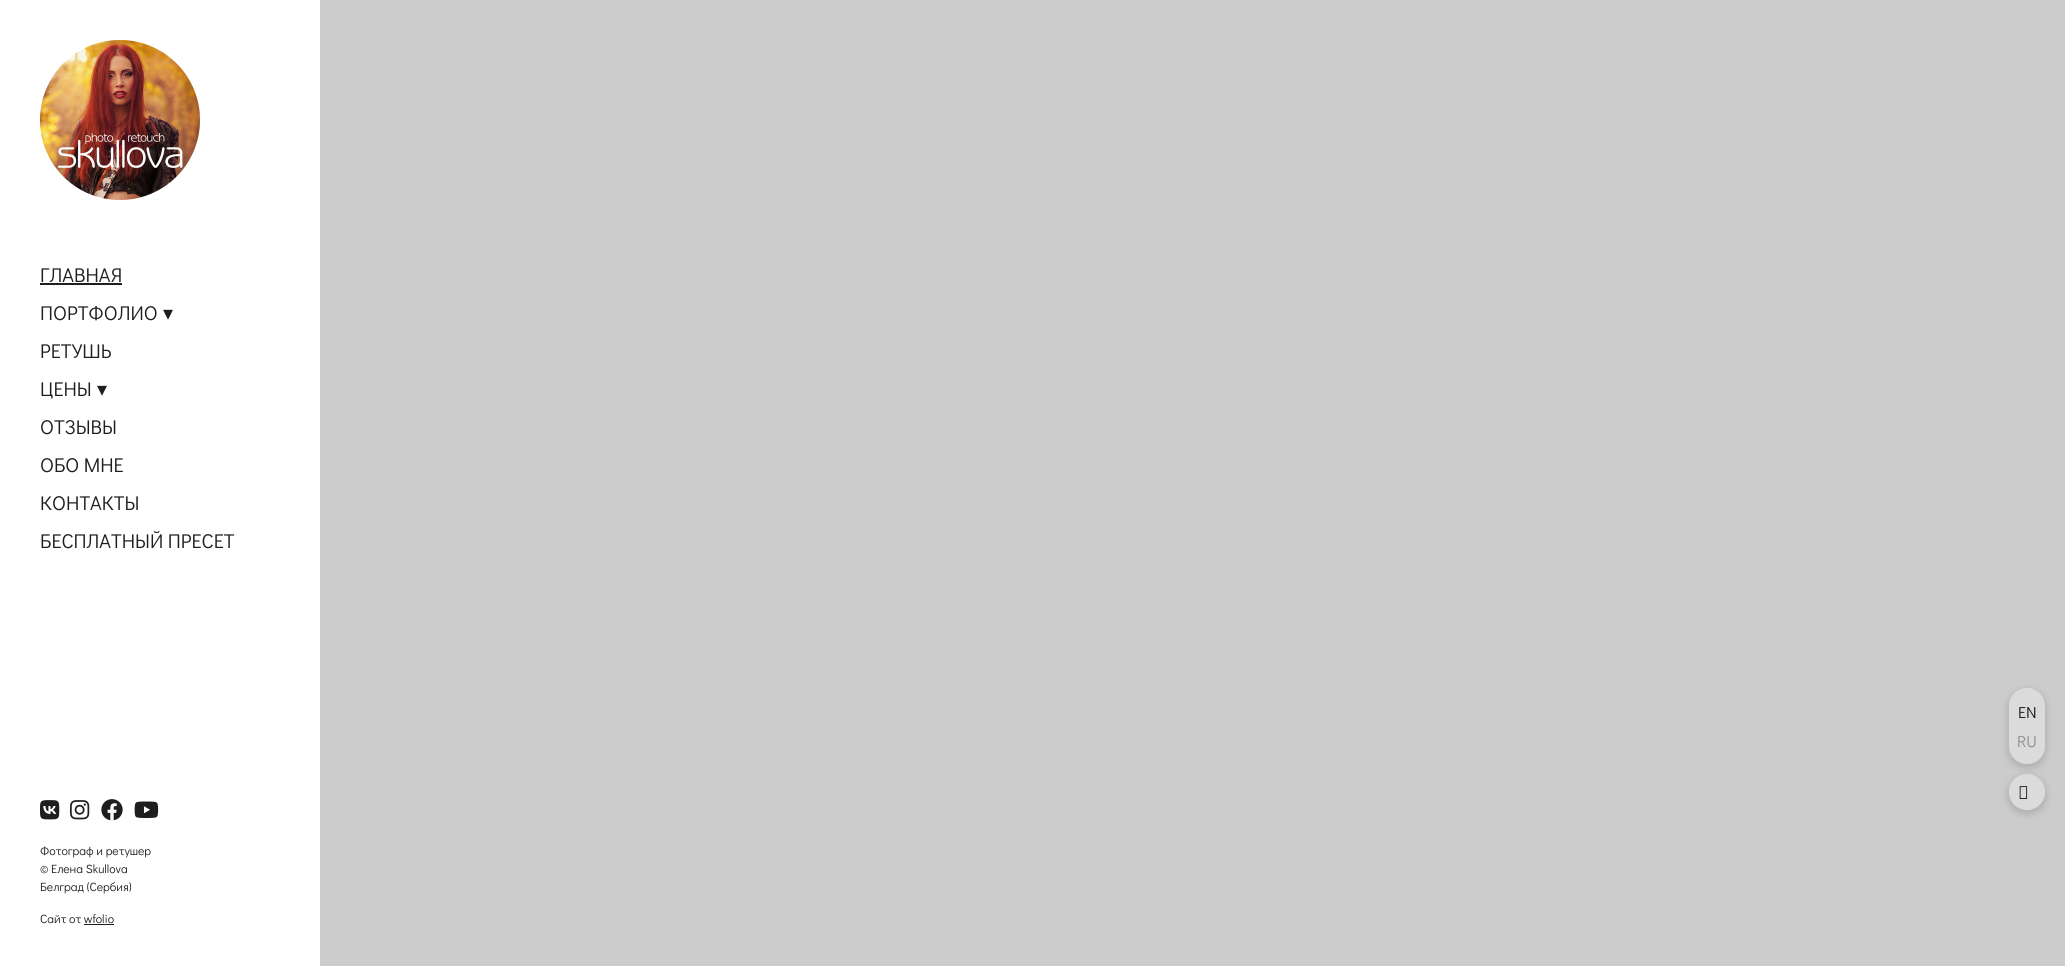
#include <cairo.h>
#include <math.h>
#include <stddef.h>


static void round_rect(cairo_t *cr, double x, double y, double w, double h, double r) {
    cairo_new_sub_path(cr);
    cairo_arc(cr, x + w - r, y + h - r, r, 0, M_PI / 2);
    cairo_arc(cr, x + r, y + h - r, r, M_PI / 2, M_PI);
    cairo_arc(cr, x + r, y + r, r, M_PI, 1.5 * M_PI);
    cairo_arc(cr, x + w - r, y + r, r, 1.5 * M_PI, 2 * M_PI);
    cairo_close_path(cr);
}

static void shadow(cairo_t *cr, double x, double y, double w, double h, double r, double blur, double alpha) {
    cairo_push_group_with_content(cr, CAIRO_CONTENT_ALPHA);
    cairo_set_operator(cr, CAIRO_OPERATOR_SOURCE);
    for (int i = 15; i >= -15 && fmin(w, h) + blur * i / 3 > 0; i -= 2) {
        double e = blur * i / 6;
        cairo_set_source_rgba(cr, 0, 0, 0, alpha * erfc((i - 1) / 8.5) / 2);
        round_rect(cr, x - e, y - e, w + 2 * e, h + 2 * e, fmax(0, fmin(r + e + blur * .6, fmin(w, h) / 2 + e)));
        cairo_fill(cr);
    }
    cairo_pattern_t *soft = cairo_pop_group(cr);
    cairo_mask(cr, soft);
    cairo_pattern_destroy(soft);
}

static void picture(cairo_t *cr, const char *path, double x, double y, double w, double h) {
    cairo_surface_t *image = cairo_image_surface_create_from_png(path);
    cairo_save(cr);
    cairo_set_source_surface(cr, image, x, y);
    cairo_rectangle(cr, x, y, w, h);
    cairo_fill(cr);
    cairo_restore(cr);
    cairo_surface_destroy(image);
}

int main(void) {
    cairo_surface_t *surface = cairo_image_surface_create(CAIRO_FORMAT_RGB24, 2065, 966);
    cairo_t *cr = cairo_create(surface);
    cairo_font_options_t *options = cairo_font_options_create();
    cairo_font_options_set_hint_metrics(options, CAIRO_HINT_METRICS_OFF);
    cairo_font_options_set_hint_style(options, CAIRO_HINT_STYLE_NONE);
    cairo_set_font_options(cr, options);
    cairo_set_miter_limit(cr, 4);
    cairo_set_source_rgb(cr, 1, 1, 1);
    cairo_paint(cr);
    picture(cr, "img1.png", 40, 40, 160, 160);
    cairo_select_font_face(cr, "Didact Gothic", CAIRO_FONT_SLANT_NORMAL, CAIRO_FONT_WEIGHT_NORMAL);
    cairo_set_font_size(cr, 20);
    cairo_set_source_rgb(cr, 0.118, 0.118, 0.118);
    cairo_move_to(cr, 40, 282);
    cairo_show_text(cr, "ГЛАВНАЯ");
    cairo_rectangle(cr, 40, 283, 82, 2);
    cairo_fill(cr);
    cairo_move_to(cr, 40, 320);
    cairo_show_text(cr, "ПОРТФОЛИО");
    cairo_select_font_face(cr, "DejaVu Sans", CAIRO_FONT_SLANT_NORMAL, CAIRO_FONT_WEIGHT_NORMAL);
    cairo_move_to(cr, 163, 320);
    cairo_show_text(cr, "▾");
    cairo_select_font_face(cr, "Didact Gothic", CAIRO_FONT_SLANT_NORMAL, CAIRO_FONT_WEIGHT_NORMAL);
    cairo_move_to(cr, 40, 358);
    cairo_show_text(cr, "РЕТУШЬ");
    cairo_move_to(cr, 40, 396);
    cairo_show_text(cr, "ЦЕНЫ");
    cairo_select_font_face(cr, "DejaVu Sans", CAIRO_FONT_SLANT_NORMAL, CAIRO_FONT_WEIGHT_NORMAL);
    cairo_move_to(cr, 97, 396);
    cairo_show_text(cr, "▾");
    cairo_select_font_face(cr, "Didact Gothic", CAIRO_FONT_SLANT_NORMAL, CAIRO_FONT_WEIGHT_NORMAL);
    cairo_move_to(cr, 40, 434);
    cairo_show_text(cr, "ОТЗЫВЫ");
    cairo_move_to(cr, 40, 472);
    cairo_show_text(cr, "ОБО МНЕ");
    cairo_move_to(cr, 40, 510);
    cairo_show_text(cr, "КОНТАКТЫ");
    cairo_move_to(cr, 40, 548);
    cairo_show_text(cr, "БЕСПЛАТНЫЙ ПРЕСЕТ");
    picture(cr, "img2.png", 40, 800, 20, 20);
    picture(cr, "img3.png", 70, 800, 20, 20);
    picture(cr, "img4.png", 101, 799, 22, 22);
    picture(cr, "img5.png", 134, 801, 25, 17);
    cairo_set_font_size(cr, 12);
    cairo_move_to(cr, 40, 855);
    cairo_show_text(cr, "Фотограф и ретушер");
    cairo_move_to(cr, 40, 873);
    cairo_show_text(cr, "© Елена Skullova");
    cairo_move_to(cr, 40, 891);
    cairo_show_text(cr, "Белград (Сербия)");
    cairo_move_to(cr, 40, 923);
    cairo_show_text(cr, "Сайт от wfolio");
    cairo_rectangle(cr, 84, 924, 30, 1);
    cairo_fill(cr);
    cairo_set_source_rgb(cr, 0.8, 0.8, 0.8);
    cairo_rectangle(cr, 320, 0, 1745, 966);
    cairo_fill(cr);
    cairo_save(cr);
    cairo_set_fill_rule(cr, CAIRO_FILL_RULE_EVEN_ODD);
    cairo_new_path(cr);
    cairo_move_to(cr, 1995, 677);
    cairo_line_to(cr, 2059, 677);
    cairo_line_to(cr, 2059, 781);
    cairo_line_to(cr, 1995, 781);
    cairo_close_path(cr);
    cairo_move_to(cr, 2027, 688);
    cairo_curve_to(cr, 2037, 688, 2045, 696, 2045, 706);
    cairo_line_to(cr, 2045, 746);
    cairo_curve_to(cr, 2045, 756, 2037, 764, 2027, 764);
    cairo_curve_to(cr, 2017, 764, 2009, 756, 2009, 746);
    cairo_line_to(cr, 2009, 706);
    cairo_curve_to(cr, 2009, 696, 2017, 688, 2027, 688);
    cairo_close_path(cr);
    cairo_clip(cr);
    cairo_set_source_rgb(cr, 0, 0, 0);
    shadow(cr, 2008, 690, 38, 78, 19, 4, 0.15);
    cairo_restore(cr);
    cairo_set_source_rgba(cr, 1, 1, 1, 0.3);
    round_rect(cr, 2009, 688, 36, 76, 18);
    cairo_fill(cr);
    cairo_set_font_size(cr, 16);
    cairo_set_source_rgb(cr, 0.118, 0.118, 0.118);
    cairo_move_to(cr, 2018, 718);
    cairo_show_text(cr, "EN");
    cairo_set_source_rgb(cr, 0.565, 0.565, 0.565);
    cairo_move_to(cr, 2017, 747);
    cairo_show_text(cr, "RU");
    cairo_save(cr);
    cairo_set_fill_rule(cr, CAIRO_FILL_RULE_EVEN_ODD);
    cairo_new_path(cr);
    cairo_move_to(cr, 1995, 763);
    cairo_line_to(cr, 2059, 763);
    cairo_line_to(cr, 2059, 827);
    cairo_line_to(cr, 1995, 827);
    cairo_close_path(cr);
    cairo_move_to(cr, 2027, 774);
    cairo_curve_to(cr, 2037, 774, 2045, 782, 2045, 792);
    cairo_curve_to(cr, 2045, 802, 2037, 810, 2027, 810);
    cairo_curve_to(cr, 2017, 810, 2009, 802, 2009, 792);
    cairo_curve_to(cr, 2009, 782, 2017, 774, 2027, 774);
    cairo_close_path(cr);
    cairo_clip(cr);
    cairo_set_source_rgb(cr, 0, 0, 0);
    shadow(cr, 2008, 776, 38, 38, 19, 4, 0.15);
    cairo_restore(cr);
    cairo_set_source_rgba(cr, 1, 1, 1, 0.3);
    cairo_arc(cr, 2027, 792, 18, 0, 2 * M_PI);
    cairo_fill(cr);
    picture(cr, "img6.png", 2019, 786, 9, 13);
    cairo_surface_write_to_png(surface, "page.png");
    cairo_font_options_destroy(options);
    cairo_destroy(cr);
    cairo_surface_destroy(surface);
    return 0;
}
